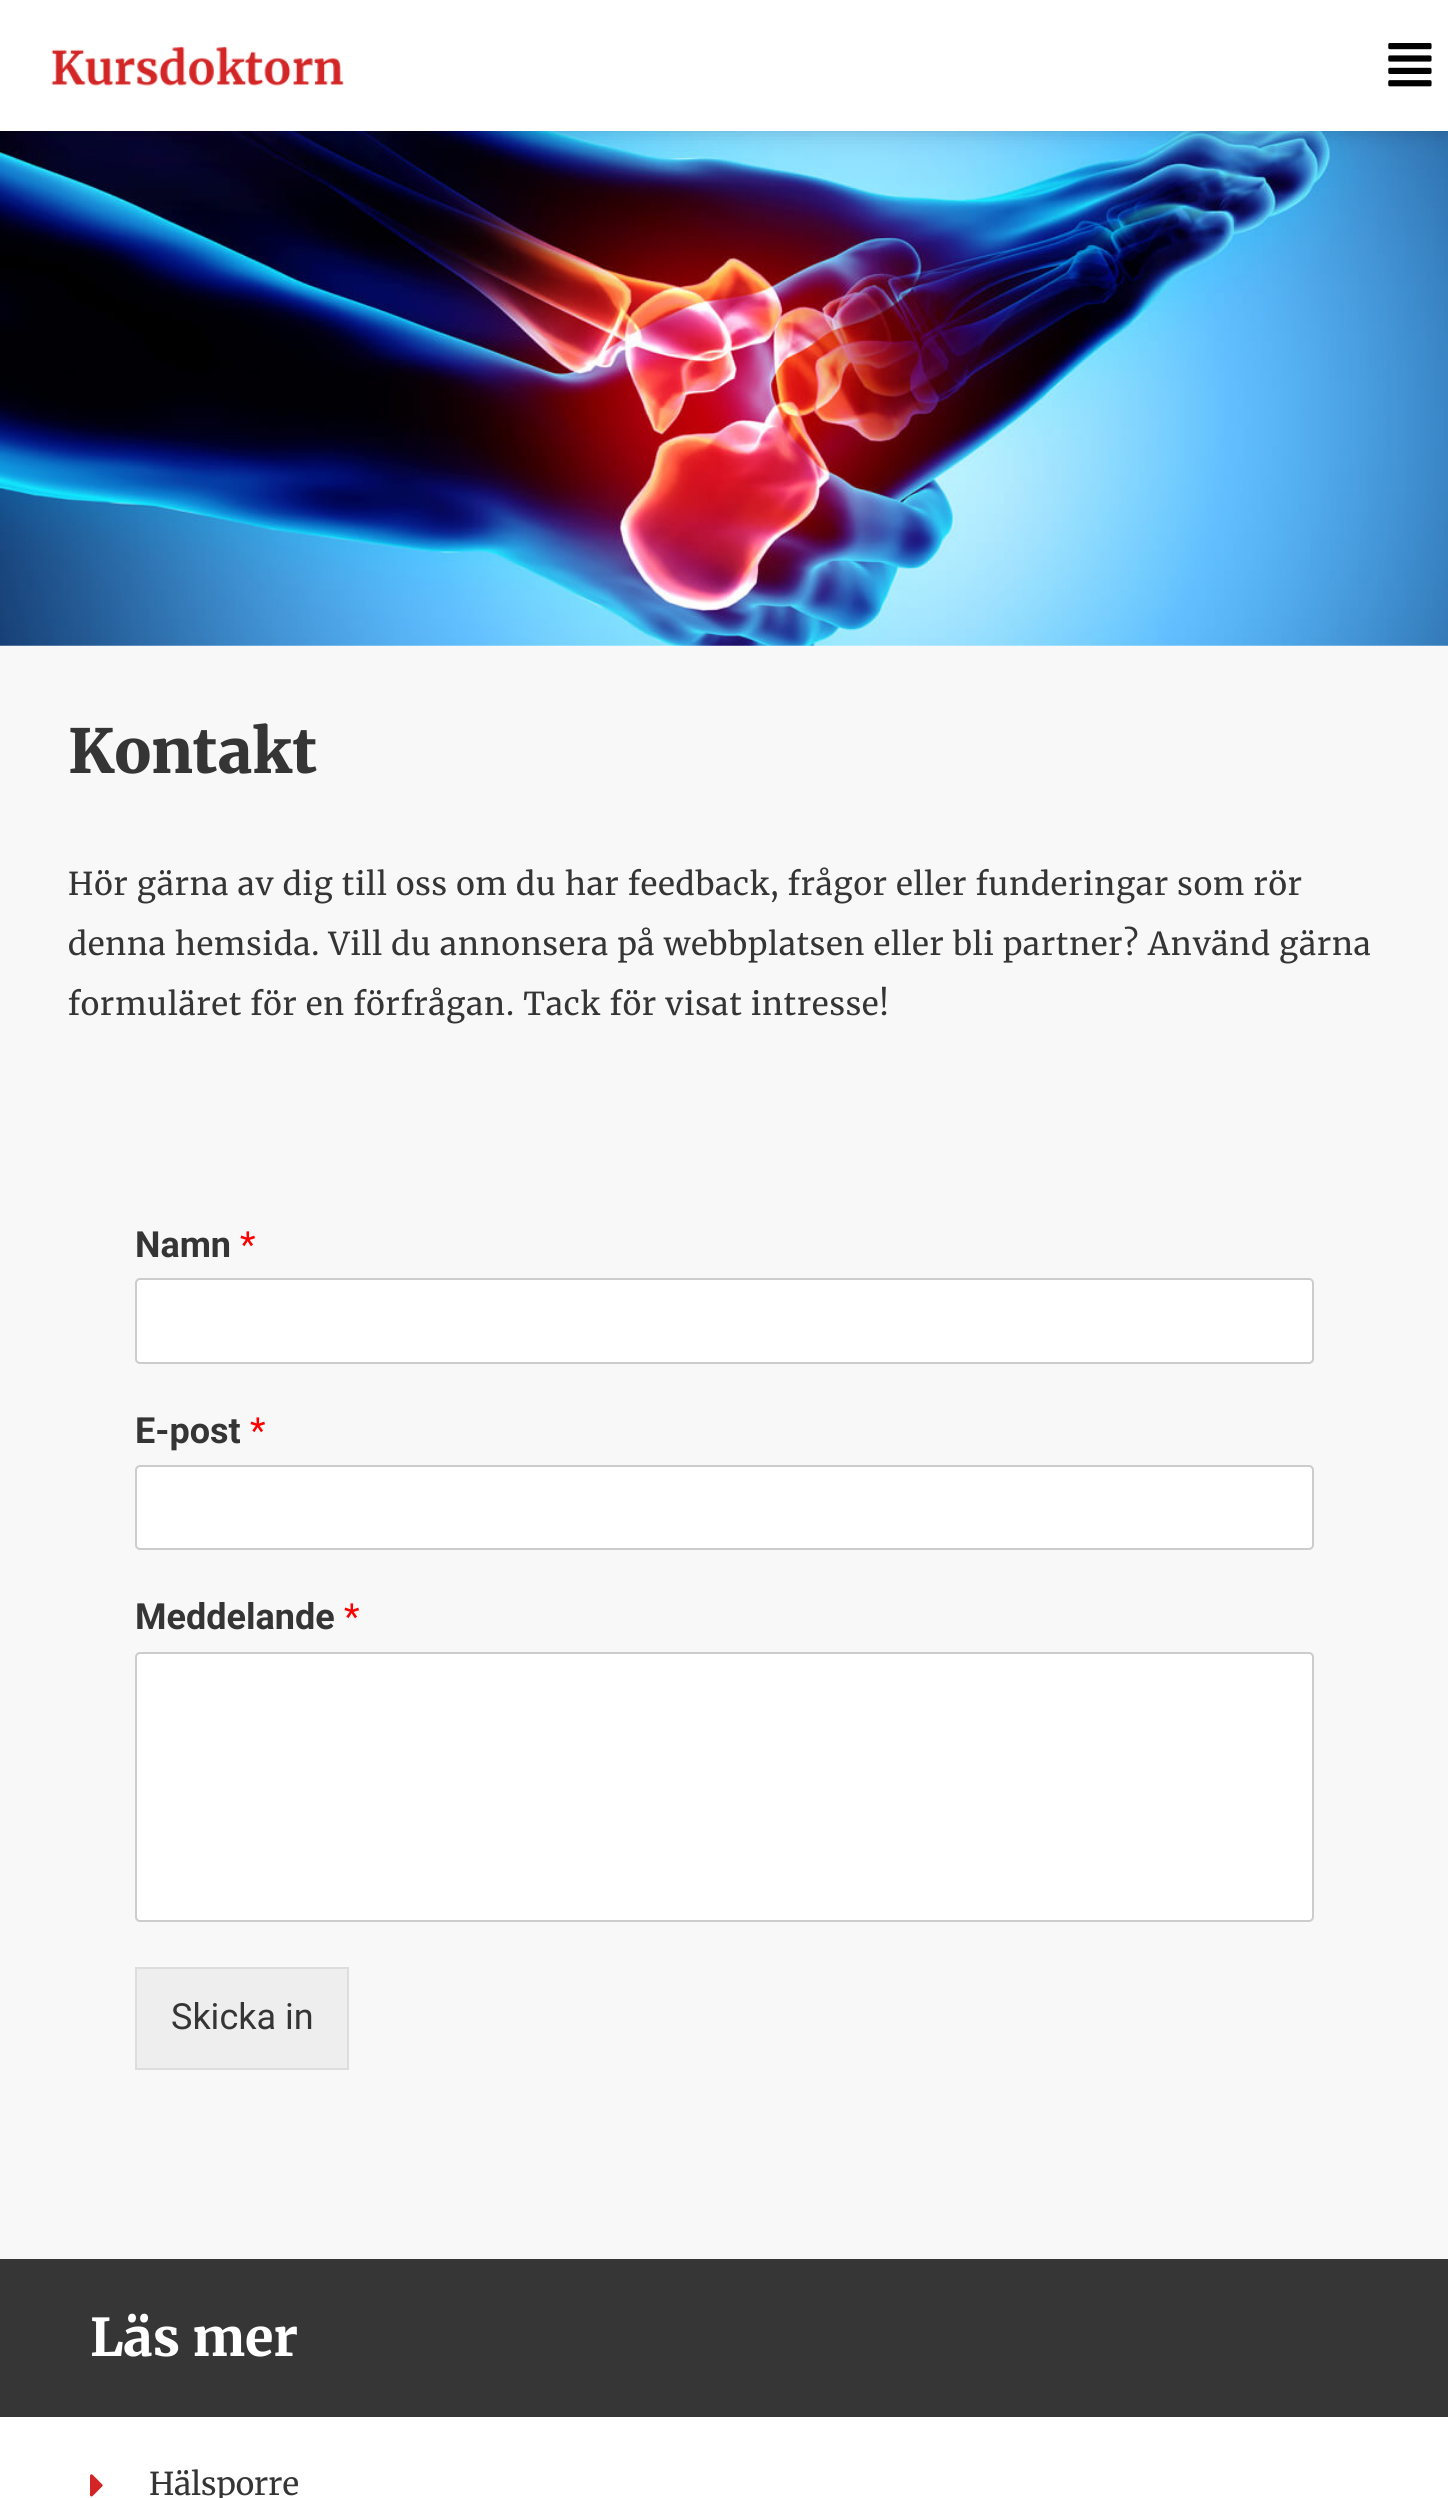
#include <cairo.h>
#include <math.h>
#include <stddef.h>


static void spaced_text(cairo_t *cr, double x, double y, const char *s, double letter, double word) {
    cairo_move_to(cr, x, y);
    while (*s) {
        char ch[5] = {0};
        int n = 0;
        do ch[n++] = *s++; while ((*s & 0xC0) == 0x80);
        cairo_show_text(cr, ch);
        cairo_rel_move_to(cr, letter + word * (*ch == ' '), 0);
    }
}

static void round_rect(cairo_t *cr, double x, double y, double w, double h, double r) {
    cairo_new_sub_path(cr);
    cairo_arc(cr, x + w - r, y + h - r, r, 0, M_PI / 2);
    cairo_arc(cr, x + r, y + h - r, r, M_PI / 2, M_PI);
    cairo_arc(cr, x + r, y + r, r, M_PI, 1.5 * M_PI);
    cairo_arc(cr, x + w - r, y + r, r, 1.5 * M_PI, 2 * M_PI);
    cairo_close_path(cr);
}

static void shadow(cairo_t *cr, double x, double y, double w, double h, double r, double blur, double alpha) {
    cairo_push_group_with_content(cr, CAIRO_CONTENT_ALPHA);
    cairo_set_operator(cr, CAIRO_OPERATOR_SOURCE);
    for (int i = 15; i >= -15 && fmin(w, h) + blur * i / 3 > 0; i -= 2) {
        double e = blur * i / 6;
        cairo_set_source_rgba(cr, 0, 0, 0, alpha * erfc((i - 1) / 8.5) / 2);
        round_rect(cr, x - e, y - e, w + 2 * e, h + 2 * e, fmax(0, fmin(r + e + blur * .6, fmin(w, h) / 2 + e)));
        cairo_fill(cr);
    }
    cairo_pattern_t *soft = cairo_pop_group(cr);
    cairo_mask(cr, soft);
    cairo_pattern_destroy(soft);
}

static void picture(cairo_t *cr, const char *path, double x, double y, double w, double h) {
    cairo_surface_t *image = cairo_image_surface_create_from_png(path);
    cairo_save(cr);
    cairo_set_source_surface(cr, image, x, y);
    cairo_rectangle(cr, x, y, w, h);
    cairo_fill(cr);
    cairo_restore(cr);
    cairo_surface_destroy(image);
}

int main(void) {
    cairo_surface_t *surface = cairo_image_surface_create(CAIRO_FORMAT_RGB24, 1448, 2498);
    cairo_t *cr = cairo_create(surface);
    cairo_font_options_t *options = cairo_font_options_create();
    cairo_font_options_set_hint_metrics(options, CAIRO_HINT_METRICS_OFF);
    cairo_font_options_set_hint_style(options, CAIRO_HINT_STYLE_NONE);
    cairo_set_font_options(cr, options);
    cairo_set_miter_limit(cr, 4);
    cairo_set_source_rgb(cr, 1, 1, 1);
    cairo_paint(cr);
    picture(cr, "img3.png", 0, 131, 1448, 515);
    cairo_set_source_rgb(cr, 0.012, 0.012, 0.012);
    shadow(cr, 0, 0, 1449, 131, 0, 11, 0.19);
    cairo_set_source_rgb(cr, 1, 1, 1);
    cairo_rectangle(cr, 0, 0, 1448, 131);
    cairo_fill(cr);
    picture(cr, "img1.png", 51, 46, 293, 40);
    picture(cr, "img2.png", 1388, 43, 44, 44);
    cairo_set_source_rgb(cr, 0.969, 0.969, 0.969);
    cairo_rectangle(cr, 0, 646, 1448, 1613);
    cairo_fill(cr);
    cairo_select_font_face(cr, "Merriweather Black", CAIRO_FONT_SLANT_NORMAL, CAIRO_FONT_WEIGHT_NORMAL);
    cairo_set_font_size(cr, 60.75);
    cairo_set_source_rgb(cr, 0.208, 0.208, 0.208);
    cairo_move_to(cr, 68, 773);
    cairo_show_text(cr, "Kontakt");
    cairo_select_font_face(cr, "Merriweather", CAIRO_FONT_SLANT_NORMAL, CAIRO_FONT_WEIGHT_NORMAL);
    cairo_set_font_size(cr, 31.5);
    spaced_text(cr, 68, 895, "Hör gärna av dig till oss om du har feedback, frågor eller funderingar som rör", 0.9, 0);
    spaced_text(cr, 68, 955, "denna hemsida. Vill du annonsera på webbplatsen eller bli partner? Använd gärna", 0.9, 0);
    spaced_text(cr, 68, 1015, "formuläret för en förfrågan. Tack för visat intresse!", 0.9, 0);
    cairo_select_font_face(cr, "Roboto", CAIRO_FONT_SLANT_NORMAL, CAIRO_FONT_WEIGHT_BOLD);
    cairo_set_font_size(cr, 36);
    cairo_move_to(cr, 135, 1257);
    cairo_show_text(cr, "Namn");
    cairo_select_font_face(cr, "Roboto", CAIRO_FONT_SLANT_NORMAL, CAIRO_FONT_WEIGHT_NORMAL);
    cairo_set_source_rgb(cr, 1, 0, 0);
    cairo_move_to(cr, 240, 1257);
    cairo_show_text(cr, "*");
    cairo_set_source_rgb(cr, 1, 1, 1);
    round_rect(cr, 136, 1279, 1177, 84, 4);
    cairo_fill_preserve(cr);
    cairo_set_source_rgb(cr, 0.8, 0.8, 0.8);
    cairo_stroke(cr);
    cairo_select_font_face(cr, "Roboto", CAIRO_FONT_SLANT_NORMAL, CAIRO_FONT_WEIGHT_BOLD);
    cairo_set_source_rgb(cr, 0.208, 0.208, 0.208);
    cairo_move_to(cr, 135, 1443);
    cairo_show_text(cr, "E-post");
    cairo_select_font_face(cr, "Roboto", CAIRO_FONT_SLANT_NORMAL, CAIRO_FONT_WEIGHT_NORMAL);
    cairo_set_source_rgb(cr, 1, 0, 0);
    cairo_move_to(cr, 250, 1443);
    cairo_show_text(cr, "*");
    cairo_set_source_rgb(cr, 1, 1, 1);
    round_rect(cr, 136, 1466, 1177, 83, 4);
    cairo_fill_preserve(cr);
    cairo_set_source_rgb(cr, 0.8, 0.8, 0.8);
    cairo_stroke(cr);
    cairo_select_font_face(cr, "Roboto", CAIRO_FONT_SLANT_NORMAL, CAIRO_FONT_WEIGHT_BOLD);
    cairo_set_source_rgb(cr, 0.208, 0.208, 0.208);
    cairo_move_to(cr, 135, 1629);
    cairo_show_text(cr, "Meddelande");
    cairo_select_font_face(cr, "Roboto", CAIRO_FONT_SLANT_NORMAL, CAIRO_FONT_WEIGHT_NORMAL);
    cairo_set_source_rgb(cr, 1, 0, 0);
    cairo_move_to(cr, 344, 1629);
    cairo_show_text(cr, "*");
    cairo_set_source_rgb(cr, 1, 1, 1);
    round_rect(cr, 136, 1653, 1177, 268, 4);
    cairo_fill_preserve(cr);
    cairo_set_source_rgb(cr, 0.8, 0.8, 0.8);
    cairo_stroke(cr);
    cairo_set_source_rgb(cr, 0.933, 0.933, 0.933);
    cairo_rectangle(cr, 136, 1968, 212, 101);
    cairo_fill_preserve(cr);
    cairo_set_source_rgb(cr, 0.867, 0.867, 0.867);
    cairo_stroke(cr);
    cairo_set_source_rgb(cr, 0.208, 0.208, 0.208);
    cairo_move_to(cr, 171, 2029);
    cairo_show_text(cr, "Skicka in");
    cairo_set_source_rgb(cr, 0.212, 0.212, 0.212);
    cairo_rectangle(cr, 0, 2259, 1448, 158);
    cairo_fill(cr);
    cairo_select_font_face(cr, "Merriweather ExtraBold", CAIRO_FONT_SLANT_NORMAL, CAIRO_FONT_WEIGHT_NORMAL);
    cairo_set_font_size(cr, 52);
    cairo_set_source_rgb(cr, 1, 1, 1);
    cairo_move_to(cr, 90, 2356);
    cairo_show_text(cr, "Läs mer");
    picture(cr, "img4.png", 90, 2474, 13, 23);
    cairo_select_font_face(cr, "Merriweather", CAIRO_FONT_SLANT_NORMAL, CAIRO_FONT_WEIGHT_NORMAL);
    cairo_set_font_size(cr, 31.5);
    cairo_set_source_rgb(cr, 0.208, 0.208, 0.208);
    cairo_move_to(cr, 149, 2495);
    cairo_show_text(cr, "Hälsporre");
    cairo_surface_write_to_png(surface, "page.png");
    cairo_font_options_destroy(options);
    cairo_destroy(cr);
    cairo_surface_destroy(surface);
    return 0;
}
